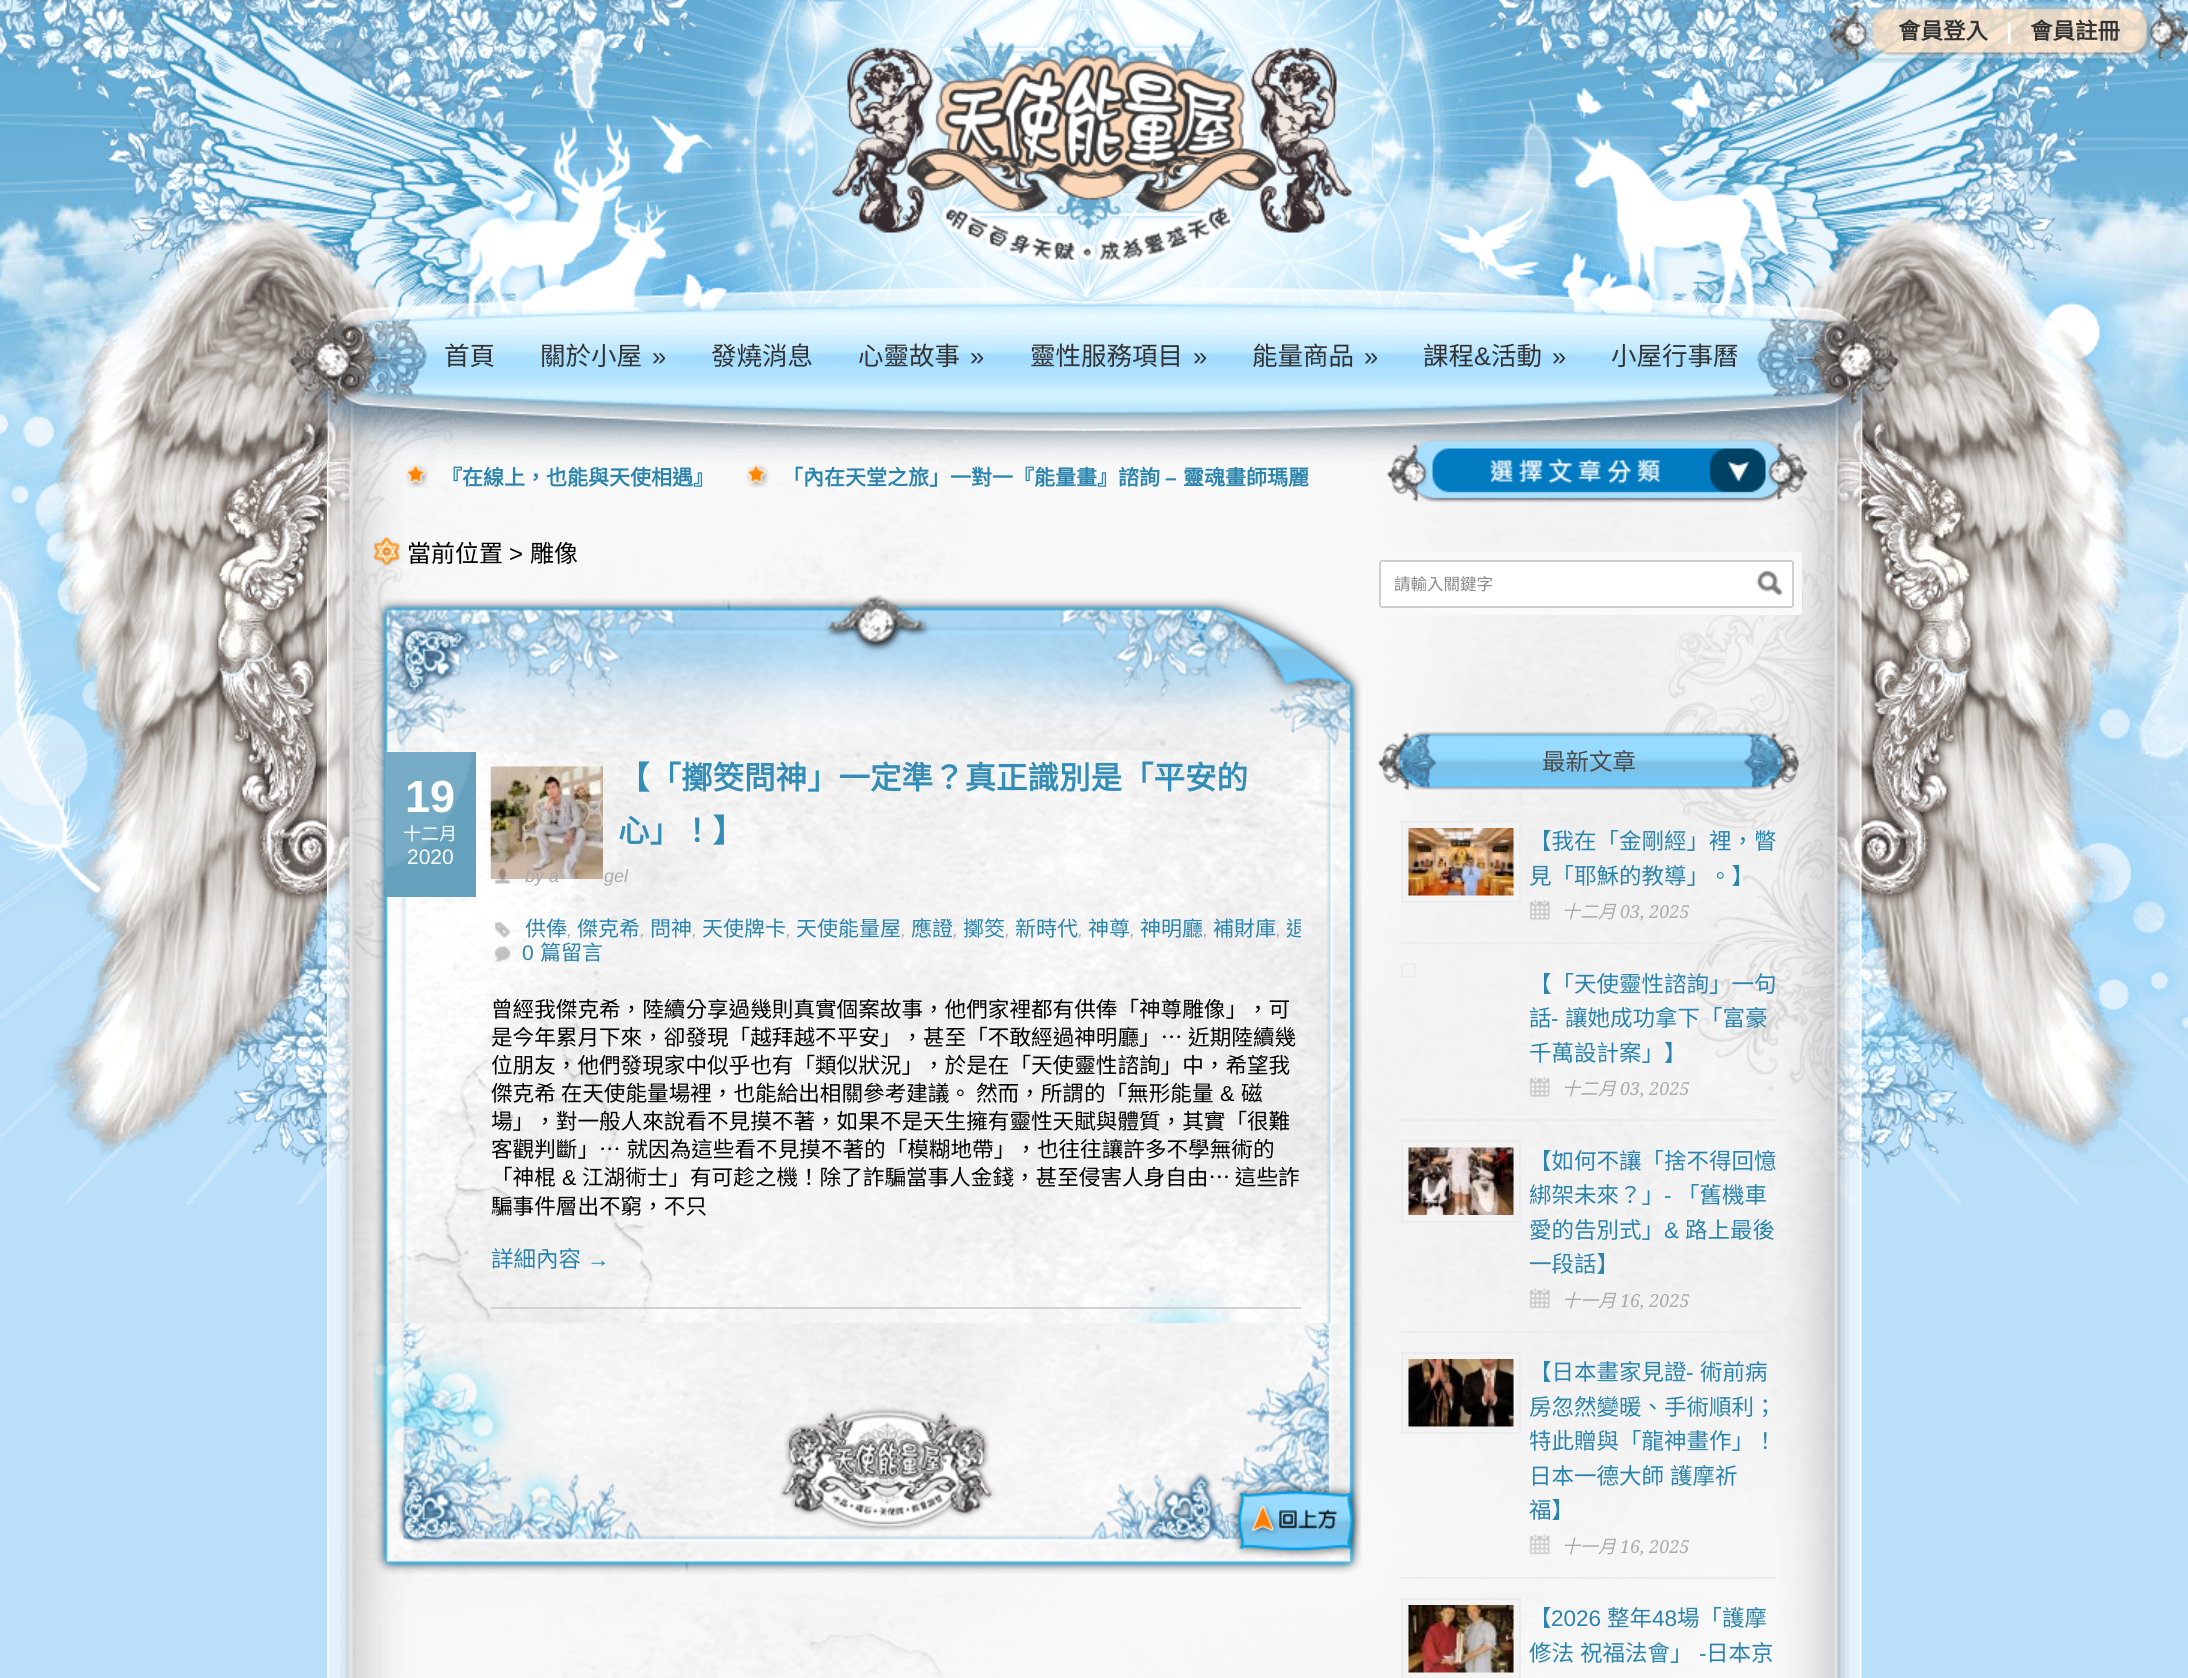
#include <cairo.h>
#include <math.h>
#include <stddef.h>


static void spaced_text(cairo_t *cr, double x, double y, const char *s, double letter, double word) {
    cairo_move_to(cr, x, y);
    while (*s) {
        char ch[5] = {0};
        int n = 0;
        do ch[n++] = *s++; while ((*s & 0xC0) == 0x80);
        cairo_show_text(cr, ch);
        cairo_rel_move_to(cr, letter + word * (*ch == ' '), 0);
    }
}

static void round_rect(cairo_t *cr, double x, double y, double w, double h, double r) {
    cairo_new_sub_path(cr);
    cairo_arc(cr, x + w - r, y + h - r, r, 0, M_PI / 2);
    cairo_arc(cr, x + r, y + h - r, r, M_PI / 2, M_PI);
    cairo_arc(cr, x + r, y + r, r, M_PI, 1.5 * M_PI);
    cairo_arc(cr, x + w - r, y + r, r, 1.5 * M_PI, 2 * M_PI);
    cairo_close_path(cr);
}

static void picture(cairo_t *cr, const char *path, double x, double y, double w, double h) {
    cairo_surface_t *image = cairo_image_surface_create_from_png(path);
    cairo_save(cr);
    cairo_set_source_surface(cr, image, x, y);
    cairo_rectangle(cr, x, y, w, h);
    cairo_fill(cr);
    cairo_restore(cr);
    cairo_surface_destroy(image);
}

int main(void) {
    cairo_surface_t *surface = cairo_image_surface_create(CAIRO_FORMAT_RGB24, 2188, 1678);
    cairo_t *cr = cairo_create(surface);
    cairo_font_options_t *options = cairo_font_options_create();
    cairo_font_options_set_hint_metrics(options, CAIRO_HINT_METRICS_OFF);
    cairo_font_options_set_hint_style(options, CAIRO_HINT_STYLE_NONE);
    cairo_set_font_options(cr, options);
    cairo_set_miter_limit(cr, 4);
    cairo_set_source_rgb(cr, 0.729, 0.875, 0.976);
    cairo_paint(cr);
    picture(cr, "img1.png", 0, 0, 2188, 816);
    picture(cr, "img2.png", 0, 0, 2188, 1205);
    picture(cr, "img3.png", 1828, 1, 360, 62);
    cairo_select_font_face(cr, "Noto Sans CJK TC", CAIRO_FONT_SLANT_NORMAL, CAIRO_FONT_WEIGHT_BOLD);
    cairo_set_font_size(cr, 22.5);
    cairo_set_source_rgb(cr, 0.2, 0.2, 0.2);
    cairo_move_to(cr, 1898, 39);
    cairo_show_text(cr, "會員登入");
    cairo_select_font_face(cr, "Liberation Sans", CAIRO_FONT_SLANT_NORMAL, CAIRO_FONT_WEIGHT_BOLD);
    cairo_set_source_rgb(cr, 1, 1, 1);
    cairo_move_to(cr, 2006, 39);
    cairo_show_text(cr, "|");
    cairo_select_font_face(cr, "Noto Sans CJK TC", CAIRO_FONT_SLANT_NORMAL, CAIRO_FONT_WEIGHT_BOLD);
    cairo_set_source_rgb(cr, 0.2, 0.2, 0.2);
    cairo_move_to(cr, 2030, 39);
    cairo_show_text(cr, "會員註冊");
    picture(cr, "img4.png", 832, 0, 520, 309);
    cairo_select_font_face(cr, "Noto Sans CJK TC", CAIRO_FONT_SLANT_NORMAL, CAIRO_FONT_WEIGHT_NORMAL);
    cairo_set_font_size(cr, 25.5);
    cairo_move_to(cr, 444, 365);
    cairo_show_text(cr, "首頁");
    cairo_move_to(cr, 540, 365);
    cairo_show_text(cr, "關於小屋");
    cairo_select_font_face(cr, "Liberation Sans", CAIRO_FONT_SLANT_NORMAL, CAIRO_FONT_WEIGHT_NORMAL);
    cairo_move_to(cr, 652, 365);
    cairo_show_text(cr, "»");
    cairo_select_font_face(cr, "Noto Sans CJK TC", CAIRO_FONT_SLANT_NORMAL, CAIRO_FONT_WEIGHT_NORMAL);
    cairo_move_to(cr, 711, 365);
    cairo_show_text(cr, "發燒消息");
    cairo_move_to(cr, 858, 365);
    cairo_show_text(cr, "心靈故事");
    cairo_select_font_face(cr, "Liberation Sans", CAIRO_FONT_SLANT_NORMAL, CAIRO_FONT_WEIGHT_NORMAL);
    cairo_move_to(cr, 970, 365);
    cairo_show_text(cr, "»");
    cairo_select_font_face(cr, "Noto Sans CJK TC", CAIRO_FONT_SLANT_NORMAL, CAIRO_FONT_WEIGHT_NORMAL);
    cairo_move_to(cr, 1030, 365);
    cairo_show_text(cr, "靈性服務項目");
    cairo_select_font_face(cr, "Liberation Sans", CAIRO_FONT_SLANT_NORMAL, CAIRO_FONT_WEIGHT_NORMAL);
    cairo_move_to(cr, 1193, 365);
    cairo_show_text(cr, "»");
    cairo_select_font_face(cr, "Noto Sans CJK TC", CAIRO_FONT_SLANT_NORMAL, CAIRO_FONT_WEIGHT_NORMAL);
    cairo_move_to(cr, 1252, 365);
    cairo_show_text(cr, "能量商品");
    cairo_select_font_face(cr, "Liberation Sans", CAIRO_FONT_SLANT_NORMAL, CAIRO_FONT_WEIGHT_NORMAL);
    cairo_move_to(cr, 1364, 365);
    cairo_show_text(cr, "»");
    cairo_select_font_face(cr, "Noto Sans CJK TC", CAIRO_FONT_SLANT_NORMAL, CAIRO_FONT_WEIGHT_NORMAL);
    cairo_move_to(cr, 1423, 365);
    cairo_show_text(cr, "課程");
    cairo_select_font_face(cr, "Liberation Sans", CAIRO_FONT_SLANT_NORMAL, CAIRO_FONT_WEIGHT_NORMAL);
    cairo_move_to(cr, 1474, 365);
    cairo_show_text(cr, "&");
    cairo_select_font_face(cr, "Noto Sans CJK TC", CAIRO_FONT_SLANT_NORMAL, CAIRO_FONT_WEIGHT_NORMAL);
    cairo_move_to(cr, 1491, 365);
    cairo_show_text(cr, "活動");
    cairo_select_font_face(cr, "Liberation Sans", CAIRO_FONT_SLANT_NORMAL, CAIRO_FONT_WEIGHT_NORMAL);
    cairo_move_to(cr, 1552, 365);
    cairo_show_text(cr, "»");
    cairo_select_font_face(cr, "Noto Sans CJK TC", CAIRO_FONT_SLANT_NORMAL, CAIRO_FONT_WEIGHT_NORMAL);
    cairo_move_to(cr, 1611, 365);
    cairo_show_text(cr, "小屋行事曆");
    picture(cr, "img5.png", 327, 462, 1535, 1216);
    picture(cr, "img6.png", 405, 463, 24, 25);
    cairo_select_font_face(cr, "Noto Sans CJK TC", CAIRO_FONT_SLANT_NORMAL, CAIRO_FONT_WEIGHT_BOLD);
    cairo_set_font_size(cr, 21);
    cairo_set_source_rgb(cr, 0.165, 0.518, 0.682);
    cairo_move_to(cr, 441, 485);
    cairo_show_text(cr, "『在線上，也能與天使相遇』");
    picture(cr, "img7.png", 746, 463, 23, 25);
    cairo_move_to(cr, 782, 485);
    cairo_show_text(cr, "「內在天堂之旅」一對一『能量畫』諮詢");
    cairo_select_font_face(cr, "Liberation Sans", CAIRO_FONT_SLANT_NORMAL, CAIRO_FONT_WEIGHT_BOLD);
    cairo_move_to(cr, 1165, 485);
    cairo_show_text(cr, "–");
    cairo_select_font_face(cr, "Noto Sans CJK TC", CAIRO_FONT_SLANT_NORMAL, CAIRO_FONT_WEIGHT_BOLD);
    cairo_move_to(cr, 1183, 485);
    cairo_show_text(cr, "靈魂畫師瑪麗");
    picture(cr, "img8.png", 1387, 439, 421, 64);
    picture(cr, "img9.png", 373, 537, 29, 29);
    cairo_select_font_face(cr, "Noto Sans CJK TC", CAIRO_FONT_SLANT_NORMAL, CAIRO_FONT_WEIGHT_NORMAL);
    cairo_set_font_size(cr, 24);
    cairo_set_source_rgb(cr, 0, 0, 0);
    cairo_move_to(cr, 407, 562);
    cairo_show_text(cr, "當前位置");
    cairo_select_font_face(cr, "Liberation Sans", CAIRO_FONT_SLANT_NORMAL, CAIRO_FONT_WEIGHT_NORMAL);
    cairo_move_to(cr, 509, 562);
    cairo_show_text(cr, ">");
    cairo_select_font_face(cr, "Noto Sans CJK TC", CAIRO_FONT_SLANT_NORMAL, CAIRO_FONT_WEIGHT_NORMAL);
    cairo_move_to(cr, 530, 562);
    cairo_show_text(cr, "雕像");
    picture(cr, "img10.png", 375, 594, 987, 158);
    picture(cr, "img11.png", 375, 751, 987, 572);
    cairo_set_source_rgb(cr, 0.396, 0.631, 0.741);
    cairo_rectangle(cr, 386, 752, 90, 145);
    cairo_fill(cr);
    picture(cr, "img12.png", 385, 751, 88, 118);
    cairo_select_font_face(cr, "Liberation Sans", CAIRO_FONT_SLANT_NORMAL, CAIRO_FONT_WEIGHT_BOLD);
    cairo_set_font_size(cr, 45);
    cairo_set_source_rgb(cr, 1, 1, 1);
    cairo_move_to(cr, 405, 812);
    cairo_show_text(cr, "19");
    cairo_select_font_face(cr, "Noto Sans CJK TC", CAIRO_FONT_SLANT_NORMAL, CAIRO_FONT_WEIGHT_NORMAL);
    cairo_set_font_size(cr, 18);
    cairo_move_to(cr, 403, 840);
    cairo_show_text(cr, "十二月");
    cairo_select_font_face(cr, "Liberation Sans", CAIRO_FONT_SLANT_NORMAL, CAIRO_FONT_WEIGHT_NORMAL);
    cairo_set_font_size(cr, 21);
    cairo_move_to(cr, 407, 864);
    cairo_show_text(cr, "2020");
    picture(cr, "img13.png", 490, 766, 113, 113);
    cairo_select_font_face(cr, "Noto Sans CJK TC", CAIRO_FONT_SLANT_NORMAL, CAIRO_FONT_WEIGHT_BOLD);
    cairo_set_font_size(cr, 31.5);
    cairo_set_source_rgb(cr, 0.2, 0.553, 0.718);
    cairo_move_to(cr, 618, 789);
    cairo_show_text(cr, "【「擲筊問神」一定準？真正識別是「平安的");
    cairo_move_to(cr, 618, 842);
    cairo_show_text(cr, "心」！】");
    picture(cr, "img14.png", 494, 868, 17, 16);
    cairo_select_font_face(cr, "Liberation Sans", CAIRO_FONT_SLANT_ITALIC, CAIRO_FONT_WEIGHT_NORMAL);
    cairo_set_font_size(cr, 18);
    cairo_set_source_rgb(cr, 0.667, 0.667, 0.667);
    cairo_move_to(cr, 525, 882);
    cairo_show_text(cr, "by a");
    cairo_move_to(cr, 604, 882);
    cairo_show_text(cr, "gel");
    picture(cr, "img15.png", 494, 922, 17, 16);
    cairo_select_font_face(cr, "Noto Sans CJK TC", CAIRO_FONT_SLANT_NORMAL, CAIRO_FONT_WEIGHT_NORMAL);
    cairo_set_font_size(cr, 21);
    cairo_set_source_rgb(cr, 0.165, 0.518, 0.682);
    cairo_move_to(cr, 525, 936);
    cairo_show_text(cr, "供俸");
    cairo_select_font_face(cr, "Liberation Sans", CAIRO_FONT_SLANT_ITALIC, CAIRO_FONT_WEIGHT_NORMAL);
    cairo_set_font_size(cr, 18);
    cairo_set_source_rgb(cr, 0.667, 0.667, 0.667);
    cairo_move_to(cr, 567, 936);
    cairo_show_text(cr, ",");
    cairo_select_font_face(cr, "Noto Sans CJK TC", CAIRO_FONT_SLANT_NORMAL, CAIRO_FONT_WEIGHT_NORMAL);
    cairo_set_font_size(cr, 21);
    cairo_set_source_rgb(cr, 0.165, 0.518, 0.682);
    cairo_move_to(cr, 577, 936);
    cairo_show_text(cr, "傑克希");
    cairo_select_font_face(cr, "Liberation Sans", CAIRO_FONT_SLANT_ITALIC, CAIRO_FONT_WEIGHT_NORMAL);
    cairo_set_font_size(cr, 18);
    cairo_set_source_rgb(cr, 0.667, 0.667, 0.667);
    cairo_move_to(cr, 640, 936);
    cairo_show_text(cr, ",");
    cairo_select_font_face(cr, "Noto Sans CJK TC", CAIRO_FONT_SLANT_NORMAL, CAIRO_FONT_WEIGHT_NORMAL);
    cairo_set_font_size(cr, 21);
    cairo_set_source_rgb(cr, 0.165, 0.518, 0.682);
    cairo_move_to(cr, 650, 936);
    cairo_show_text(cr, "問神");
    cairo_select_font_face(cr, "Liberation Sans", CAIRO_FONT_SLANT_ITALIC, CAIRO_FONT_WEIGHT_NORMAL);
    cairo_set_font_size(cr, 18);
    cairo_set_source_rgb(cr, 0.667, 0.667, 0.667);
    cairo_move_to(cr, 692, 936);
    cairo_show_text(cr, ",");
    cairo_select_font_face(cr, "Noto Sans CJK TC", CAIRO_FONT_SLANT_NORMAL, CAIRO_FONT_WEIGHT_NORMAL);
    cairo_set_font_size(cr, 21);
    cairo_set_source_rgb(cr, 0.165, 0.518, 0.682);
    cairo_move_to(cr, 702, 936);
    cairo_show_text(cr, "天使牌卡");
    cairo_select_font_face(cr, "Liberation Sans", CAIRO_FONT_SLANT_ITALIC, CAIRO_FONT_WEIGHT_NORMAL);
    cairo_set_font_size(cr, 18);
    cairo_set_source_rgb(cr, 0.667, 0.667, 0.667);
    cairo_move_to(cr, 786, 936);
    cairo_show_text(cr, ",");
    cairo_select_font_face(cr, "Noto Sans CJK TC", CAIRO_FONT_SLANT_NORMAL, CAIRO_FONT_WEIGHT_NORMAL);
    cairo_set_font_size(cr, 21);
    cairo_set_source_rgb(cr, 0.165, 0.518, 0.682);
    cairo_move_to(cr, 796, 936);
    cairo_show_text(cr, "天使能量屋");
    cairo_select_font_face(cr, "Liberation Sans", CAIRO_FONT_SLANT_ITALIC, CAIRO_FONT_WEIGHT_NORMAL);
    cairo_set_font_size(cr, 18);
    cairo_set_source_rgb(cr, 0.667, 0.667, 0.667);
    cairo_move_to(cr, 901, 936);
    cairo_show_text(cr, ",");
    cairo_select_font_face(cr, "Noto Sans CJK TC", CAIRO_FONT_SLANT_NORMAL, CAIRO_FONT_WEIGHT_NORMAL);
    cairo_set_font_size(cr, 21);
    cairo_set_source_rgb(cr, 0.165, 0.518, 0.682);
    cairo_move_to(cr, 911, 936);
    cairo_show_text(cr, "應證");
    cairo_select_font_face(cr, "Liberation Sans", CAIRO_FONT_SLANT_ITALIC, CAIRO_FONT_WEIGHT_NORMAL);
    cairo_set_font_size(cr, 18);
    cairo_set_source_rgb(cr, 0.667, 0.667, 0.667);
    cairo_move_to(cr, 953, 936);
    cairo_show_text(cr, ",");
    cairo_select_font_face(cr, "Noto Sans CJK TC", CAIRO_FONT_SLANT_NORMAL, CAIRO_FONT_WEIGHT_NORMAL);
    cairo_set_font_size(cr, 21);
    cairo_set_source_rgb(cr, 0.165, 0.518, 0.682);
    cairo_move_to(cr, 963, 936);
    cairo_show_text(cr, "擲筊");
    cairo_select_font_face(cr, "Liberation Sans", CAIRO_FONT_SLANT_ITALIC, CAIRO_FONT_WEIGHT_NORMAL);
    cairo_set_font_size(cr, 18);
    cairo_set_source_rgb(cr, 0.667, 0.667, 0.667);
    cairo_move_to(cr, 1005, 936);
    cairo_show_text(cr, ",");
    cairo_select_font_face(cr, "Noto Sans CJK TC", CAIRO_FONT_SLANT_NORMAL, CAIRO_FONT_WEIGHT_NORMAL);
    cairo_set_font_size(cr, 21);
    cairo_set_source_rgb(cr, 0.165, 0.518, 0.682);
    cairo_move_to(cr, 1015, 936);
    cairo_show_text(cr, "新時代");
    cairo_select_font_face(cr, "Liberation Sans", CAIRO_FONT_SLANT_ITALIC, CAIRO_FONT_WEIGHT_NORMAL);
    cairo_set_font_size(cr, 18);
    cairo_set_source_rgb(cr, 0.667, 0.667, 0.667);
    cairo_move_to(cr, 1078, 936);
    cairo_show_text(cr, ",");
    cairo_select_font_face(cr, "Noto Sans CJK TC", CAIRO_FONT_SLANT_NORMAL, CAIRO_FONT_WEIGHT_NORMAL);
    cairo_set_font_size(cr, 21);
    cairo_set_source_rgb(cr, 0.165, 0.518, 0.682);
    cairo_move_to(cr, 1088, 936);
    cairo_show_text(cr, "神尊");
    cairo_select_font_face(cr, "Liberation Sans", CAIRO_FONT_SLANT_ITALIC, CAIRO_FONT_WEIGHT_NORMAL);
    cairo_set_font_size(cr, 18);
    cairo_set_source_rgb(cr, 0.667, 0.667, 0.667);
    cairo_move_to(cr, 1130, 936);
    cairo_show_text(cr, ",");
    cairo_select_font_face(cr, "Noto Sans CJK TC", CAIRO_FONT_SLANT_NORMAL, CAIRO_FONT_WEIGHT_NORMAL);
    cairo_set_font_size(cr, 21);
    cairo_set_source_rgb(cr, 0.165, 0.518, 0.682);
    cairo_move_to(cr, 1140, 936);
    cairo_show_text(cr, "神明廳");
    cairo_select_font_face(cr, "Liberation Sans", CAIRO_FONT_SLANT_ITALIC, CAIRO_FONT_WEIGHT_NORMAL);
    cairo_set_font_size(cr, 18);
    cairo_set_source_rgb(cr, 0.667, 0.667, 0.667);
    cairo_move_to(cr, 1203, 936);
    cairo_show_text(cr, ",");
    cairo_select_font_face(cr, "Noto Sans CJK TC", CAIRO_FONT_SLANT_NORMAL, CAIRO_FONT_WEIGHT_NORMAL);
    cairo_set_font_size(cr, 21);
    cairo_set_source_rgb(cr, 0.165, 0.518, 0.682);
    cairo_move_to(cr, 1213, 936);
    cairo_show_text(cr, "補財庫");
    cairo_select_font_face(cr, "Liberation Sans", CAIRO_FONT_SLANT_ITALIC, CAIRO_FONT_WEIGHT_NORMAL);
    cairo_set_font_size(cr, 18);
    cairo_set_source_rgb(cr, 0.667, 0.667, 0.667);
    cairo_move_to(cr, 1276, 936);
    cairo_show_text(cr, ",");
    cairo_save(cr);
    cairo_rectangle(cr, 491, 918, 810, 24);
    cairo_clip(cr);
    cairo_select_font_face(cr, "Noto Sans CJK TC", CAIRO_FONT_SLANT_NORMAL, CAIRO_FONT_WEIGHT_NORMAL);
    cairo_set_font_size(cr, 21);
    cairo_set_source_rgb(cr, 0.165, 0.518, 0.682);
    cairo_move_to(cr, 1286, 936);
    cairo_show_text(cr, "退");
    cairo_restore(cr);
    picture(cr, "img16.png", 494, 946, 17, 16);
    cairo_select_font_face(cr, "Liberation Sans", CAIRO_FONT_SLANT_NORMAL, CAIRO_FONT_WEIGHT_NORMAL);
    cairo_set_font_size(cr, 21);
    cairo_set_source_rgb(cr, 0.165, 0.518, 0.682);
    cairo_move_to(cr, 522, 960);
    cairo_show_text(cr, "0");
    cairo_select_font_face(cr, "Noto Sans CJK TC", CAIRO_FONT_SLANT_NORMAL, CAIRO_FONT_WEIGHT_NORMAL);
    cairo_move_to(cr, 540, 960);
    cairo_show_text(cr, "篇留言");
    cairo_set_source_rgb(cr, 0.82, 0.82, 0.82);
    cairo_rectangle(cr, 491, 1307, 810, 2);
    cairo_fill(cr);
    cairo_set_font_size(cr, 21.6);
    cairo_set_source_rgb(cr, 0, 0, 0);
    cairo_move_to(cr, 491, 1017);
    cairo_show_text(cr, "曾經我傑克希，陸續分享過幾則真實個案故事，他們家裡都有供俸「神尊雕像」，可");
    spaced_text(cr, 491, 1045, "是今年累月下來，卻發現「越拜越不平安」，甚至「不敢經過神明廳」⋯ 近期陸續幾", 0, 1);
    cairo_move_to(cr, 491, 1073);
    cairo_show_text(cr, "位朋友，他們發現家中似乎也有「類似狀況」，於是在「天使靈性諮詢」中，希望我");
    cairo_move_to(cr, 491, 1101);
    cairo_show_text(cr, "傑克希 在天使能量場裡，也能給出相關參考建議。 然而，所謂的「無形能量");
    cairo_select_font_face(cr, "Liberation Sans", CAIRO_FONT_SLANT_NORMAL, CAIRO_FONT_WEIGHT_NORMAL);
    cairo_move_to(cr, 1220, 1101);
    cairo_show_text(cr, "&");
    cairo_select_font_face(cr, "Noto Sans CJK TC", CAIRO_FONT_SLANT_NORMAL, CAIRO_FONT_WEIGHT_NORMAL);
    cairo_move_to(cr, 1241, 1101);
    cairo_show_text(cr, "磁");
    cairo_move_to(cr, 491, 1129);
    cairo_show_text(cr, "場」，對一般人來說看不見摸不著，如果不是天生擁有靈性天賦與體質，其實「很難");
    spaced_text(cr, 491, 1157, "客觀判斷」⋯ 就因為這些看不見摸不著的「模糊地帶」，也往往讓許多不學無術的", 0, 1);
    cairo_move_to(cr, 491, 1185);
    cairo_show_text(cr, "「神棍");
    cairo_select_font_face(cr, "Liberation Sans", CAIRO_FONT_SLANT_NORMAL, CAIRO_FONT_WEIGHT_NORMAL);
    cairo_move_to(cr, 562, 1185);
    cairo_show_text(cr, "&");
    cairo_select_font_face(cr, "Noto Sans CJK TC", CAIRO_FONT_SLANT_NORMAL, CAIRO_FONT_WEIGHT_NORMAL);
    cairo_move_to(cr, 582, 1185);
    cairo_show_text(cr, "江湖術士」有可趁之機！除了詐騙當事人金錢，甚至侵害人身自由⋯ 這些詐");
    cairo_move_to(cr, 491, 1214);
    cairo_show_text(cr, "騙事件層出不窮，不只");
    cairo_set_font_size(cr, 22.5);
    cairo_set_source_rgb(cr, 0.165, 0.518, 0.682);
    cairo_move_to(cr, 491, 1267);
    cairo_show_text(cr, "詳細內容");
    cairo_select_font_face(cr, "Liberation Sans", CAIRO_FONT_SLANT_NORMAL, CAIRO_FONT_WEIGHT_NORMAL);
    cairo_move_to(cr, 587, 1267);
    cairo_show_text(cr, "→");
    picture(cr, "img17.png", 373, 1323, 989, 251);
    picture(cr, "img18.png", 1230, 1483, 131, 75);
    cairo_set_source_rgb(cr, 0.973, 0.973, 0.973);
    cairo_new_path(cr);
    cairo_move_to(cr, 1374, 567);
    cairo_curve_to(cr, 1372, 567, 1371, 568, 1371, 570);
    cairo_line_to(cr, 1371, 612);
    cairo_curve_to(cr, 1371, 614, 1372, 615, 1374, 615);
    cairo_line_to(cr, 1784, 615);
    cairo_curve_to(cr, 1786, 615, 1787, 614, 1787, 612);
    cairo_line_to(cr, 1787, 608);
    cairo_line_to(cr, 1382, 608);
    cairo_curve_to(cr, 1380, 608, 1378, 606, 1378, 604);
    cairo_line_to(cr, 1378, 567);
    cairo_close_path(cr);
    cairo_fill(cr);
    cairo_new_path(cr);
    cairo_move_to(cr, 1389, 552);
    cairo_curve_to(cr, 1385, 552, 1386, 557, 1386, 560);
    cairo_line_to(cr, 1791, 560);
    cairo_curve_to(cr, 1793, 560, 1794, 561, 1794, 562);
    cairo_line_to(cr, 1794, 600);
    cairo_line_to(cr, 1799, 600);
    cairo_curve_to(cr, 1801, 600, 1802, 599, 1802, 597);
    cairo_line_to(cr, 1802, 555);
    cairo_curve_to(cr, 1802, 553, 1801, 552, 1799, 552);
    cairo_close_path(cr);
    cairo_fill(cr);
    cairo_new_path(cr);
    cairo_move_to(cr, 1379, 606);
    cairo_line_to(cr, 1379, 612);
    cairo_curve_to(cr, 1379, 614, 1380, 615, 1382, 615);
    cairo_line_to(cr, 1791, 615);
    cairo_curve_to(cr, 1793, 615, 1794, 614, 1794, 612);
    cairo_line_to(cr, 1794, 604);
    cairo_curve_to(cr, 1794, 606, 1793, 608, 1791, 608);
    cairo_line_to(cr, 1382, 608);
    cairo_curve_to(cr, 1380, 608, 1380, 607, 1379, 606);
    cairo_close_path(cr);
    cairo_fill(cr);
    cairo_new_path(cr);
    cairo_move_to(cr, 1387, 608);
    cairo_line_to(cr, 1389, 608);
    cairo_line_to(cr, 1799, 608);
    cairo_curve_to(cr, 1801, 608, 1802, 607, 1802, 605);
    cairo_line_to(cr, 1802, 563);
    cairo_curve_to(cr, 1802, 561, 1801, 560, 1799, 560);
    cairo_line_to(cr, 1793, 560);
    cairo_curve_to(cr, 1793, 561, 1794, 561, 1794, 562);
    cairo_line_to(cr, 1794, 604);
    cairo_curve_to(cr, 1794, 606, 1793, 608, 1791, 608);
    cairo_close_path(cr);
    cairo_fill(cr);
    cairo_new_path(cr);
    cairo_move_to(cr, 1386, 608);
    cairo_curve_to(cr, 1386, 610, 1385, 615, 1389, 615);
    cairo_line_to(cr, 1800, 615);
    cairo_line_to(cr, 1802, 613);
    cairo_line_to(cr, 1802, 577);
    cairo_curve_to(cr, 1802, 567, 1803, 567, 1794, 567);
    cairo_line_to(cr, 1794, 604);
    cairo_curve_to(cr, 1794, 606, 1793, 608, 1791, 608);
    cairo_close_path(cr);
    cairo_fill(cr);
    cairo_set_source_rgb(cr, 1, 1, 1);
    round_rect(cr, 1380, 561, 413, 46, 2);
    cairo_fill_preserve(cr);
    cairo_set_source_rgb(cr, 0.812, 0.812, 0.812);
    cairo_stroke(cr);
    cairo_select_font_face(cr, "Noto Sans CJK TC", CAIRO_FONT_SLANT_NORMAL, CAIRO_FONT_WEIGHT_NORMAL);
    cairo_set_font_size(cr, 16.5);
    cairo_set_source_rgb(cr, 0.533, 0.533, 0.533);
    cairo_move_to(cr, 1394, 590);
    cairo_show_text(cr, "請輸入關鍵字");
    picture(cr, "img19.png", 1756, 570, 26, 26);
    picture(cr, "img20.png", 1378, 731, 421, 59);
    cairo_set_font_size(cr, 23.5);
    cairo_set_source_rgb(cr, 0.286, 0.286, 0.286);
    cairo_move_to(cr, 1542, 770);
    cairo_show_text(cr, "最新文章");
    cairo_set_source_rgb(cr, 0.925, 0.925, 0.925);
    cairo_rectangle(cr, 1401, 942, 375, 2);
    cairo_fill(cr);
    cairo_set_source_rgb(cr, 0.953, 0.953, 0.953);
    cairo_rectangle(cr, 1402, 822, 118, 80);
    cairo_fill_preserve(cr);
    cairo_set_source_rgb(cr, 0.925, 0.925, 0.925);
    cairo_stroke(cr);
    picture(cr, "img21.png", 1408, 828, 106, 68);
    cairo_set_font_size(cr, 22.5);
    cairo_set_source_rgb(cr, 0.165, 0.518, 0.682);
    cairo_move_to(cr, 1529, 849);
    cairo_show_text(cr, "【我在「金剛經」裡，瞥");
    cairo_move_to(cr, 1529, 884);
    cairo_show_text(cr, "見「耶穌的教導」。】");
    picture(cr, "img22.png", 1529, 900, 21, 20);
    cairo_select_font_face(cr, "Noto Sans CJK TC", CAIRO_FONT_SLANT_ITALIC, CAIRO_FONT_WEIGHT_NORMAL);
    cairo_set_font_size(cr, 18);
    cairo_set_source_rgb(cr, 0.667, 0.667, 0.667);
    cairo_move_to(cr, 1562, 918);
    cairo_show_text(cr, "十二月");
    cairo_select_font_face(cr, "Droid Serif", CAIRO_FONT_SLANT_ITALIC, CAIRO_FONT_WEIGHT_NORMAL);
    cairo_move_to(cr, 1620, 918);
    cairo_show_text(cr, "03, 2025");
    cairo_set_source_rgb(cr, 0.925, 0.925, 0.925);
    cairo_rectangle(cr, 1401, 1119, 375, 2);
    cairo_fill(cr);
    cairo_rectangle(cr, 1402, 964, 13, 13);
    cairo_stroke(cr);
    cairo_select_font_face(cr, "Noto Sans CJK TC", CAIRO_FONT_SLANT_NORMAL, CAIRO_FONT_WEIGHT_NORMAL);
    cairo_set_font_size(cr, 22.5);
    cairo_set_source_rgb(cr, 0.165, 0.518, 0.682);
    cairo_move_to(cr, 1529, 992);
    cairo_show_text(cr, "【「天使靈性諮詢」一句");
    cairo_move_to(cr, 1529, 1026);
    cairo_show_text(cr, "話");
    cairo_select_font_face(cr, "Liberation Sans", CAIRO_FONT_SLANT_NORMAL, CAIRO_FONT_WEIGHT_NORMAL);
    cairo_move_to(cr, 1551, 1026);
    cairo_show_text(cr, "-");
    cairo_select_font_face(cr, "Noto Sans CJK TC", CAIRO_FONT_SLANT_NORMAL, CAIRO_FONT_WEIGHT_NORMAL);
    cairo_move_to(cr, 1565, 1026);
    cairo_show_text(cr, "讓她成功拿下「富豪");
    cairo_move_to(cr, 1529, 1061);
    cairo_show_text(cr, "千萬設計案」】");
    picture(cr, "img23.png", 1529, 1077, 21, 20);
    cairo_select_font_face(cr, "Noto Sans CJK TC", CAIRO_FONT_SLANT_ITALIC, CAIRO_FONT_WEIGHT_NORMAL);
    cairo_set_font_size(cr, 18);
    cairo_set_source_rgb(cr, 0.667, 0.667, 0.667);
    cairo_move_to(cr, 1562, 1095);
    cairo_show_text(cr, "十二月");
    cairo_select_font_face(cr, "Droid Serif", CAIRO_FONT_SLANT_ITALIC, CAIRO_FONT_WEIGHT_NORMAL);
    cairo_move_to(cr, 1620, 1095);
    cairo_show_text(cr, "03, 2025");
    cairo_set_source_rgb(cr, 0.925, 0.925, 0.925);
    cairo_rectangle(cr, 1401, 1331, 375, 2);
    cairo_fill(cr);
    cairo_set_source_rgb(cr, 0.953, 0.953, 0.953);
    cairo_rectangle(cr, 1411, 1143, 108, 78);
    cairo_fill(cr);
    cairo_rectangle(cr, 1402, 1141, 118, 81);
    cairo_set_source_rgb(cr, 0.925, 0.925, 0.925);
    cairo_stroke(cr);
    picture(cr, "img24.png", 1408, 1147, 106, 68);
    cairo_select_font_face(cr, "Noto Sans CJK TC", CAIRO_FONT_SLANT_NORMAL, CAIRO_FONT_WEIGHT_NORMAL);
    cairo_set_font_size(cr, 22.5);
    cairo_set_source_rgb(cr, 0.165, 0.518, 0.682);
    cairo_move_to(cr, 1529, 1169);
    cairo_show_text(cr, "【如何不讓「捨不得回憶");
    cairo_move_to(cr, 1529, 1203);
    cairo_show_text(cr, "綁架未來？」");
    cairo_select_font_face(cr, "Liberation Sans", CAIRO_FONT_SLANT_NORMAL, CAIRO_FONT_WEIGHT_NORMAL);
    cairo_move_to(cr, 1664, 1203);
    cairo_show_text(cr, "-");
    cairo_select_font_face(cr, "Noto Sans CJK TC", CAIRO_FONT_SLANT_NORMAL, CAIRO_FONT_WEIGHT_NORMAL);
    cairo_move_to(cr, 1677, 1203);
    cairo_show_text(cr, "「舊機車");
    cairo_move_to(cr, 1529, 1238);
    cairo_show_text(cr, "愛的告別式」");
    cairo_select_font_face(cr, "Liberation Sans", CAIRO_FONT_SLANT_NORMAL, CAIRO_FONT_WEIGHT_NORMAL);
    cairo_move_to(cr, 1664, 1238);
    cairo_show_text(cr, "&");
    cairo_select_font_face(cr, "Noto Sans CJK TC", CAIRO_FONT_SLANT_NORMAL, CAIRO_FONT_WEIGHT_NORMAL);
    cairo_move_to(cr, 1685, 1238);
    cairo_show_text(cr, "路上最後");
    cairo_move_to(cr, 1529, 1272);
    cairo_show_text(cr, "一段話】");
    picture(cr, "img25.png", 1529, 1288, 21, 21);
    cairo_select_font_face(cr, "Noto Sans CJK TC", CAIRO_FONT_SLANT_ITALIC, CAIRO_FONT_WEIGHT_NORMAL);
    cairo_set_font_size(cr, 18);
    cairo_set_source_rgb(cr, 0.667, 0.667, 0.667);
    cairo_move_to(cr, 1562, 1307);
    cairo_show_text(cr, "十一月");
    cairo_select_font_face(cr, "Droid Serif", CAIRO_FONT_SLANT_ITALIC, CAIRO_FONT_WEIGHT_NORMAL);
    cairo_move_to(cr, 1620, 1307);
    cairo_show_text(cr, "16, 2025");
    cairo_set_source_rgb(cr, 0.925, 0.925, 0.925);
    cairo_rectangle(cr, 1401, 1577, 375, 2);
    cairo_fill(cr);
    cairo_set_source_rgb(cr, 0.953, 0.953, 0.953);
    cairo_rectangle(cr, 1402, 1353, 118, 80);
    cairo_fill_preserve(cr);
    cairo_set_source_rgb(cr, 0.925, 0.925, 0.925);
    cairo_stroke(cr);
    picture(cr, "img26.png", 1408, 1359, 106, 68);
    cairo_select_font_face(cr, "Noto Sans CJK TC", CAIRO_FONT_SLANT_NORMAL, CAIRO_FONT_WEIGHT_NORMAL);
    cairo_set_font_size(cr, 22.5);
    cairo_set_source_rgb(cr, 0.165, 0.518, 0.682);
    cairo_move_to(cr, 1529, 1380);
    cairo_show_text(cr, "【日本畫家見證");
    cairo_select_font_face(cr, "Liberation Sans", CAIRO_FONT_SLANT_NORMAL, CAIRO_FONT_WEIGHT_NORMAL);
    cairo_move_to(cr, 1686, 1380);
    cairo_show_text(cr, "-");
    cairo_select_font_face(cr, "Noto Sans CJK TC", CAIRO_FONT_SLANT_NORMAL, CAIRO_FONT_WEIGHT_NORMAL);
    cairo_move_to(cr, 1700, 1380);
    cairo_show_text(cr, "術前病");
    cairo_move_to(cr, 1529, 1415);
    cairo_show_text(cr, "房忽然變暖、手術順利；");
    cairo_move_to(cr, 1529, 1449);
    cairo_show_text(cr, "特此贈與「龍神畫作」！");
    spaced_text(cr, 1529, 1484, "日本一德大師 護摩祈", 0, 1);
    cairo_move_to(cr, 1529, 1518);
    cairo_show_text(cr, "福】");
    picture(cr, "img27.png", 1529, 1534, 21, 21);
    cairo_select_font_face(cr, "Noto Sans CJK TC", CAIRO_FONT_SLANT_ITALIC, CAIRO_FONT_WEIGHT_NORMAL);
    cairo_set_font_size(cr, 18);
    cairo_set_source_rgb(cr, 0.667, 0.667, 0.667);
    cairo_move_to(cr, 1562, 1553);
    cairo_show_text(cr, "十一月");
    cairo_select_font_face(cr, "Droid Serif", CAIRO_FONT_SLANT_ITALIC, CAIRO_FONT_WEIGHT_NORMAL);
    cairo_move_to(cr, 1620, 1553);
    cairo_show_text(cr, "16, 2025");
    cairo_set_source_rgb(cr, 0.953, 0.953, 0.953);
    cairo_rectangle(cr, 1402, 1599, 118, 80);
    cairo_fill_preserve(cr);
    cairo_set_source_rgb(cr, 0.925, 0.925, 0.925);
    cairo_stroke(cr);
    picture(cr, "img28.png", 1408, 1605, 106, 68);
    cairo_select_font_face(cr, "Noto Sans CJK TC", CAIRO_FONT_SLANT_NORMAL, CAIRO_FONT_WEIGHT_NORMAL);
    cairo_set_font_size(cr, 22.5);
    cairo_set_source_rgb(cr, 0.165, 0.518, 0.682);
    cairo_move_to(cr, 1529, 1626);
    cairo_show_text(cr, "【");
    cairo_select_font_face(cr, "Liberation Sans", CAIRO_FONT_SLANT_NORMAL, CAIRO_FONT_WEIGHT_NORMAL);
    cairo_move_to(cr, 1551, 1626);
    cairo_show_text(cr, "2026");
    cairo_select_font_face(cr, "Noto Sans CJK TC", CAIRO_FONT_SLANT_NORMAL, CAIRO_FONT_WEIGHT_NORMAL);
    cairo_move_to(cr, 1607, 1626);
    cairo_show_text(cr, "整年");
    cairo_select_font_face(cr, "Liberation Sans", CAIRO_FONT_SLANT_NORMAL, CAIRO_FONT_WEIGHT_NORMAL);
    cairo_move_to(cr, 1652, 1626);
    cairo_show_text(cr, "48");
    cairo_select_font_face(cr, "Noto Sans CJK TC", CAIRO_FONT_SLANT_NORMAL, CAIRO_FONT_WEIGHT_NORMAL);
    cairo_move_to(cr, 1677, 1626);
    cairo_show_text(cr, "場「護摩");
    spaced_text(cr, 1529, 1661, "修法 祝福法會」", 0, 1);
    cairo_select_font_face(cr, "Liberation Sans", CAIRO_FONT_SLANT_NORMAL, CAIRO_FONT_WEIGHT_NORMAL);
    cairo_move_to(cr, 1699, 1661);
    cairo_show_text(cr, "-");
    cairo_select_font_face(cr, "Noto Sans CJK TC", CAIRO_FONT_SLANT_NORMAL, CAIRO_FONT_WEIGHT_NORMAL);
    cairo_move_to(cr, 1706, 1661);
    cairo_show_text(cr, "日本京");
    cairo_surface_write_to_png(surface, "page.png");
    cairo_font_options_destroy(options);
    cairo_destroy(cr);
    cairo_surface_destroy(surface);
    return 0;
}
